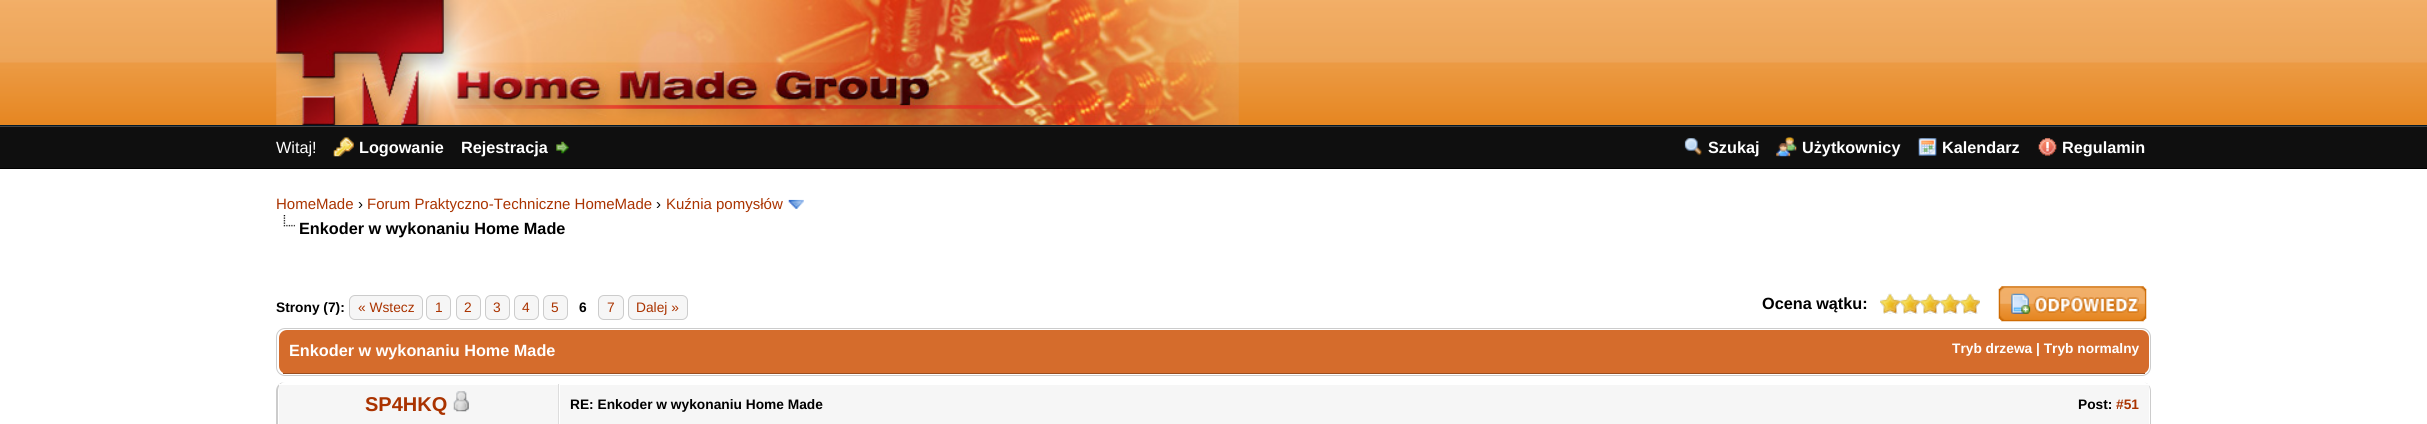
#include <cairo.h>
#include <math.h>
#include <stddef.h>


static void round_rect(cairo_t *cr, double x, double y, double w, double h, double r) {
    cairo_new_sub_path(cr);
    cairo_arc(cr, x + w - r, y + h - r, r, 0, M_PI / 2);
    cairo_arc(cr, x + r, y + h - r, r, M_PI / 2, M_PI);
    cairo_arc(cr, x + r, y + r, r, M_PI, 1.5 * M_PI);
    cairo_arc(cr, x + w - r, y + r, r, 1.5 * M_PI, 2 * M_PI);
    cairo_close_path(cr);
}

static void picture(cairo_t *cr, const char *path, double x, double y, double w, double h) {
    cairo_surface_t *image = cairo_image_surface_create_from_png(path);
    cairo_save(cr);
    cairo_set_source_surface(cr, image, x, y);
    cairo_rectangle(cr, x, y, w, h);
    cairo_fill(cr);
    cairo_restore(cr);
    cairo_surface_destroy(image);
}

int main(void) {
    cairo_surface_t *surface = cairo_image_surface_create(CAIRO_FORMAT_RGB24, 2427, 424);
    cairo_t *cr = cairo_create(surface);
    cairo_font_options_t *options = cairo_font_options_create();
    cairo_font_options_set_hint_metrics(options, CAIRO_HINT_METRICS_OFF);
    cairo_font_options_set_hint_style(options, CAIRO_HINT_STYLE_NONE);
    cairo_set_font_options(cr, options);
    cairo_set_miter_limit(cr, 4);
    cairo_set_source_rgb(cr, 1, 1, 1);
    cairo_paint(cr);
    picture(cr, "img1.png", 0, 0, 2427, 125);
    cairo_set_source_rgb(cr, 0.004, 0.098, 0.161);
    cairo_rectangle(cr, 0, 125, 2427, 1);
    cairo_fill(cr);
    picture(cr, "img2.png", 276, 0, 963, 125);
    cairo_set_source_rgb(cr, 0.059, 0.059, 0.059);
    cairo_rectangle(cr, 0, 127, 2427, 41);
    cairo_fill(cr);
    cairo_set_source_rgb(cr, 0.267, 0.267, 0.267);
    cairo_rectangle(cr, 0, 126, 2427, 1);
    cairo_fill(cr);
    cairo_set_source_rgb(cr, 0, 0, 0);
    cairo_rectangle(cr, 0, 168, 2427, 1);
    cairo_fill(cr);
    cairo_select_font_face(cr, "Liberation Sans", CAIRO_FONT_SLANT_NORMAL, CAIRO_FONT_WEIGHT_NORMAL);
    cairo_set_font_size(cr, 16.25);
    cairo_set_source_rgb(cr, 1, 1, 1);
    cairo_move_to(cr, 276, 153);
    cairo_show_text(cr, "Witaj!");
    picture(cr, "img3.png", 333, 137, 21, 20);
    cairo_select_font_face(cr, "Liberation Sans", CAIRO_FONT_SLANT_NORMAL, CAIRO_FONT_WEIGHT_BOLD);
    cairo_move_to(cr, 359, 153);
    cairo_show_text(cr, "Logowanie");
    cairo_move_to(cr, 461, 153);
    cairo_show_text(cr, "Rejestracja");
    picture(cr, "img4.png", 556, 141, 13, 13);
    picture(cr, "img5.png", 1684, 138, 18, 18);
    cairo_move_to(cr, 1708, 153);
    cairo_show_text(cr, "Szukaj");
    picture(cr, "img6.png", 1776, 137, 21, 20);
    cairo_move_to(cr, 1802, 153);
    cairo_show_text(cr, "Użytkownicy");
    picture(cr, "img7.png", 1918, 138, 19, 18);
    cairo_move_to(cr, 1942, 153);
    cairo_show_text(cr, "Kalendarz");
    picture(cr, "img8.png", 2038, 138, 19, 18);
    cairo_move_to(cr, 2062, 153);
    cairo_show_text(cr, "Regulamin");
    cairo_select_font_face(cr, "Liberation Sans", CAIRO_FONT_SLANT_NORMAL, CAIRO_FONT_WEIGHT_NORMAL);
    cairo_set_font_size(cr, 15);
    cairo_set_source_rgb(cr, 0.667, 0.2, 0);
    cairo_move_to(cr, 276, 209);
    cairo_show_text(cr, "HomeMade");
    cairo_set_source_rgb(cr, 0, 0, 0);
    cairo_move_to(cr, 358, 209);
    cairo_show_text(cr, "›");
    cairo_set_source_rgb(cr, 0.667, 0.2, 0);
    cairo_move_to(cr, 367, 209);
    cairo_show_text(cr, "Forum Praktyczno-Techniczne HomeMade");
    cairo_set_source_rgb(cr, 0, 0, 0);
    cairo_move_to(cr, 656, 209);
    cairo_show_text(cr, "›");
    cairo_set_source_rgb(cr, 0.667, 0.2, 0);
    cairo_move_to(cr, 666, 209);
    cairo_show_text(cr, "Kuźnia pomysłów");
    picture(cr, "img9.png", 788, 199, 16, 10);
    picture(cr, "img10.png", 283, 215, 12, 12);
    cairo_select_font_face(cr, "Liberation Sans", CAIRO_FONT_SLANT_NORMAL, CAIRO_FONT_WEIGHT_BOLD);
    cairo_set_font_size(cr, 16.25);
    cairo_set_source_rgb(cr, 0, 0, 0);
    cairo_move_to(cr, 299, 234);
    cairo_show_text(cr, "Enkoder w wykonaniu Home Made");
    cairo_set_font_size(cr, 13.75);
    cairo_move_to(cr, 276, 312);
    cairo_show_text(cr, "Strony (7):");
    cairo_set_source_rgb(cr, 0.961, 0.961, 0.961);
    round_rect(cr, 349.5, 295.5, 73, 24, 5.5);
    cairo_fill_preserve(cr);
    cairo_set_source_rgb(cr, 0.8, 0.8, 0.8);
    cairo_set_line_width(cr, 1);
    cairo_stroke(cr);
    cairo_select_font_face(cr, "Liberation Sans", CAIRO_FONT_SLANT_NORMAL, CAIRO_FONT_WEIGHT_NORMAL);
    cairo_set_source_rgb(cr, 0.667, 0.2, 0);
    cairo_move_to(cr, 358, 312);
    cairo_show_text(cr, "« Wstecz");
    cairo_set_source_rgb(cr, 0.961, 0.961, 0.961);
    round_rect(cr, 426.5, 295.5, 24, 24, 5.5);
    cairo_fill_preserve(cr);
    cairo_set_source_rgb(cr, 0.8, 0.8, 0.8);
    cairo_stroke(cr);
    cairo_set_source_rgb(cr, 0.667, 0.2, 0);
    cairo_move_to(cr, 435, 312);
    cairo_show_text(cr, "1");
    cairo_set_source_rgb(cr, 0.961, 0.961, 0.961);
    round_rect(cr, 456.5, 295.5, 24, 24, 5.5);
    cairo_fill_preserve(cr);
    cairo_set_source_rgb(cr, 0.8, 0.8, 0.8);
    cairo_stroke(cr);
    cairo_set_source_rgb(cr, 0.667, 0.2, 0);
    cairo_move_to(cr, 464, 312);
    cairo_show_text(cr, "2");
    cairo_set_source_rgb(cr, 0.961, 0.961, 0.961);
    round_rect(cr, 485.5, 295.5, 24, 24, 5.5);
    cairo_fill_preserve(cr);
    cairo_set_source_rgb(cr, 0.8, 0.8, 0.8);
    cairo_stroke(cr);
    cairo_set_source_rgb(cr, 0.667, 0.2, 0);
    cairo_move_to(cr, 493, 312);
    cairo_show_text(cr, "3");
    cairo_set_source_rgb(cr, 0.961, 0.961, 0.961);
    round_rect(cr, 514.5, 295.5, 24, 24, 5.5);
    cairo_fill_preserve(cr);
    cairo_set_source_rgb(cr, 0.8, 0.8, 0.8);
    cairo_stroke(cr);
    cairo_set_source_rgb(cr, 0.667, 0.2, 0);
    cairo_move_to(cr, 522, 312);
    cairo_show_text(cr, "4");
    cairo_set_source_rgb(cr, 0.961, 0.961, 0.961);
    round_rect(cr, 543.5, 295.5, 24, 24, 5.5);
    cairo_fill_preserve(cr);
    cairo_set_source_rgb(cr, 0.8, 0.8, 0.8);
    cairo_stroke(cr);
    cairo_set_source_rgb(cr, 0.667, 0.2, 0);
    cairo_move_to(cr, 551, 312);
    cairo_show_text(cr, "5");
    cairo_select_font_face(cr, "Liberation Sans", CAIRO_FONT_SLANT_NORMAL, CAIRO_FONT_WEIGHT_BOLD);
    cairo_set_source_rgb(cr, 0, 0, 0);
    cairo_move_to(cr, 579, 312);
    cairo_show_text(cr, "6");
    cairo_set_source_rgb(cr, 0.961, 0.961, 0.961);
    round_rect(cr, 598.5, 295.5, 25, 24, 5.5);
    cairo_fill_preserve(cr);
    cairo_set_source_rgb(cr, 0.8, 0.8, 0.8);
    cairo_stroke(cr);
    cairo_select_font_face(cr, "Liberation Sans", CAIRO_FONT_SLANT_NORMAL, CAIRO_FONT_WEIGHT_NORMAL);
    cairo_set_source_rgb(cr, 0.667, 0.2, 0);
    cairo_move_to(cr, 607, 312);
    cairo_show_text(cr, "7");
    cairo_set_source_rgb(cr, 0.961, 0.961, 0.961);
    round_rect(cr, 628.5, 295.5, 59, 24, 5.5);
    cairo_fill_preserve(cr);
    cairo_set_source_rgb(cr, 0.8, 0.8, 0.8);
    cairo_stroke(cr);
    cairo_set_source_rgb(cr, 0.667, 0.2, 0);
    cairo_move_to(cr, 636, 312);
    cairo_show_text(cr, "Dalej »");
    cairo_select_font_face(cr, "Liberation Sans", CAIRO_FONT_SLANT_NORMAL, CAIRO_FONT_WEIGHT_BOLD);
    cairo_set_font_size(cr, 16.25);
    cairo_set_source_rgb(cr, 0, 0, 0);
    cairo_move_to(cr, 1762, 309);
    cairo_show_text(cr, "Ocena wątku:");
    picture(cr, "img11.png", 1880, 293, 100, 21);
    picture(cr, "img12.png", 1880, 294, 100, 20);
    picture(cr, "img13.png", 1998, 286, 149, 36);
    round_rect(cr, 276.5, 328.5, 1874, 47, 8.5);
    cairo_set_source_rgb(cr, 0.8, 0.8, 0.8);
    cairo_stroke(cr);
    cairo_set_source_rgb(cr, 0.835, 0.424, 0.173);
    round_rect(cr, 279, 330, 1870, 44, 8);
    cairo_fill(cr);
    cairo_set_source_rgb(cr, 0.604, 0.306, 0.125);
    cairo_rectangle(cr, 283, 373, 1862, 1);
    cairo_fill(cr);
    cairo_set_source_rgb(cr, 1, 1, 1);
    cairo_move_to(cr, 289, 356);
    cairo_show_text(cr, "Enkoder w wykonaniu Home Made");
    cairo_set_font_size(cr, 13.75);
    cairo_move_to(cr, 1952, 353);
    cairo_show_text(cr, "Tryb drzewa | Tryb normalny");
    cairo_set_source_rgb(cr, 0.8, 0.8, 0.8);
    cairo_set_fill_rule(cr, CAIRO_FILL_RULE_EVEN_ODD);
    cairo_new_path(cr);
    cairo_move_to(cr, 285, 382);
    cairo_line_to(cr, 2142, 382);
    cairo_curve_to(cr, 2147, 382, 2151, 386, 2151, 391);
    cairo_line_to(cr, 2151, 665);
    cairo_curve_to(cr, 2151, 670, 2147, 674, 2142, 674);
    cairo_line_to(cr, 285, 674);
    cairo_curve_to(cr, 280, 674, 276, 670, 276, 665);
    cairo_line_to(cr, 276, 391);
    cairo_curve_to(cr, 276, 386, 280, 382, 285, 382);
    cairo_close_path(cr);
    cairo_move_to(cr, 285, 382);
    cairo_line_to(cr, 2142, 382);
    cairo_curve_to(cr, 2147, 382, 2150, 386, 2150, 391);
    cairo_line_to(cr, 2150, 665);
    cairo_curve_to(cr, 2150, 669, 2147, 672, 2142, 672);
    cairo_line_to(cr, 285, 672);
    cairo_curve_to(cr, 281, 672, 278, 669, 278, 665);
    cairo_line_to(cr, 278, 391);
    cairo_curve_to(cr, 278, 386, 281, 382, 285, 382);
    cairo_close_path(cr);
    cairo_fill(cr);
    cairo_set_source_rgb(cr, 0.961, 0.961, 0.961);
    cairo_rectangle(cr, 279, 385, 279, 39);
    cairo_fill(cr);
    cairo_set_source_rgb(cr, 1, 1, 1);
    cairo_rectangle(cr, 279, 384, 2, 1);
    cairo_fill(cr);
    cairo_set_source_rgb(cr, 0.867, 0.867, 0.867);
    cairo_rectangle(cr, 558, 384, 1, 40);
    cairo_fill(cr);
    cairo_set_font_size(cr, 20);
    cairo_set_source_rgb(cr, 0.667, 0.2, 0);
    cairo_move_to(cr, 365, 411);
    cairo_show_text(cr, "SP4HKQ");
    picture(cr, "img14.png", 453, 391, 16, 21);
    cairo_set_source_rgb(cr, 0.961, 0.961, 0.961);
    cairo_rectangle(cr, 560, 385, 1589, 39);
    cairo_fill(cr);
    cairo_set_source_rgb(cr, 1, 1, 1);
    cairo_rectangle(cr, 2147, 384, 2, 1);
    cairo_fill(cr);
    cairo_set_font_size(cr, 13.75);
    cairo_set_source_rgb(cr, 0, 0, 0);
    cairo_move_to(cr, 570, 409);
    cairo_show_text(cr, "RE: Enkoder w wykonaniu Home Made");
    cairo_move_to(cr, 2078, 409);
    cairo_show_text(cr, "Post:");
    cairo_set_source_rgb(cr, 0.667, 0.2, 0);
    cairo_move_to(cr, 2116, 409);
    cairo_show_text(cr, "#51");
    cairo_surface_write_to_png(surface, "page.png");
    cairo_font_options_destroy(options);
    cairo_destroy(cr);
    cairo_surface_destroy(surface);
    return 0;
}
